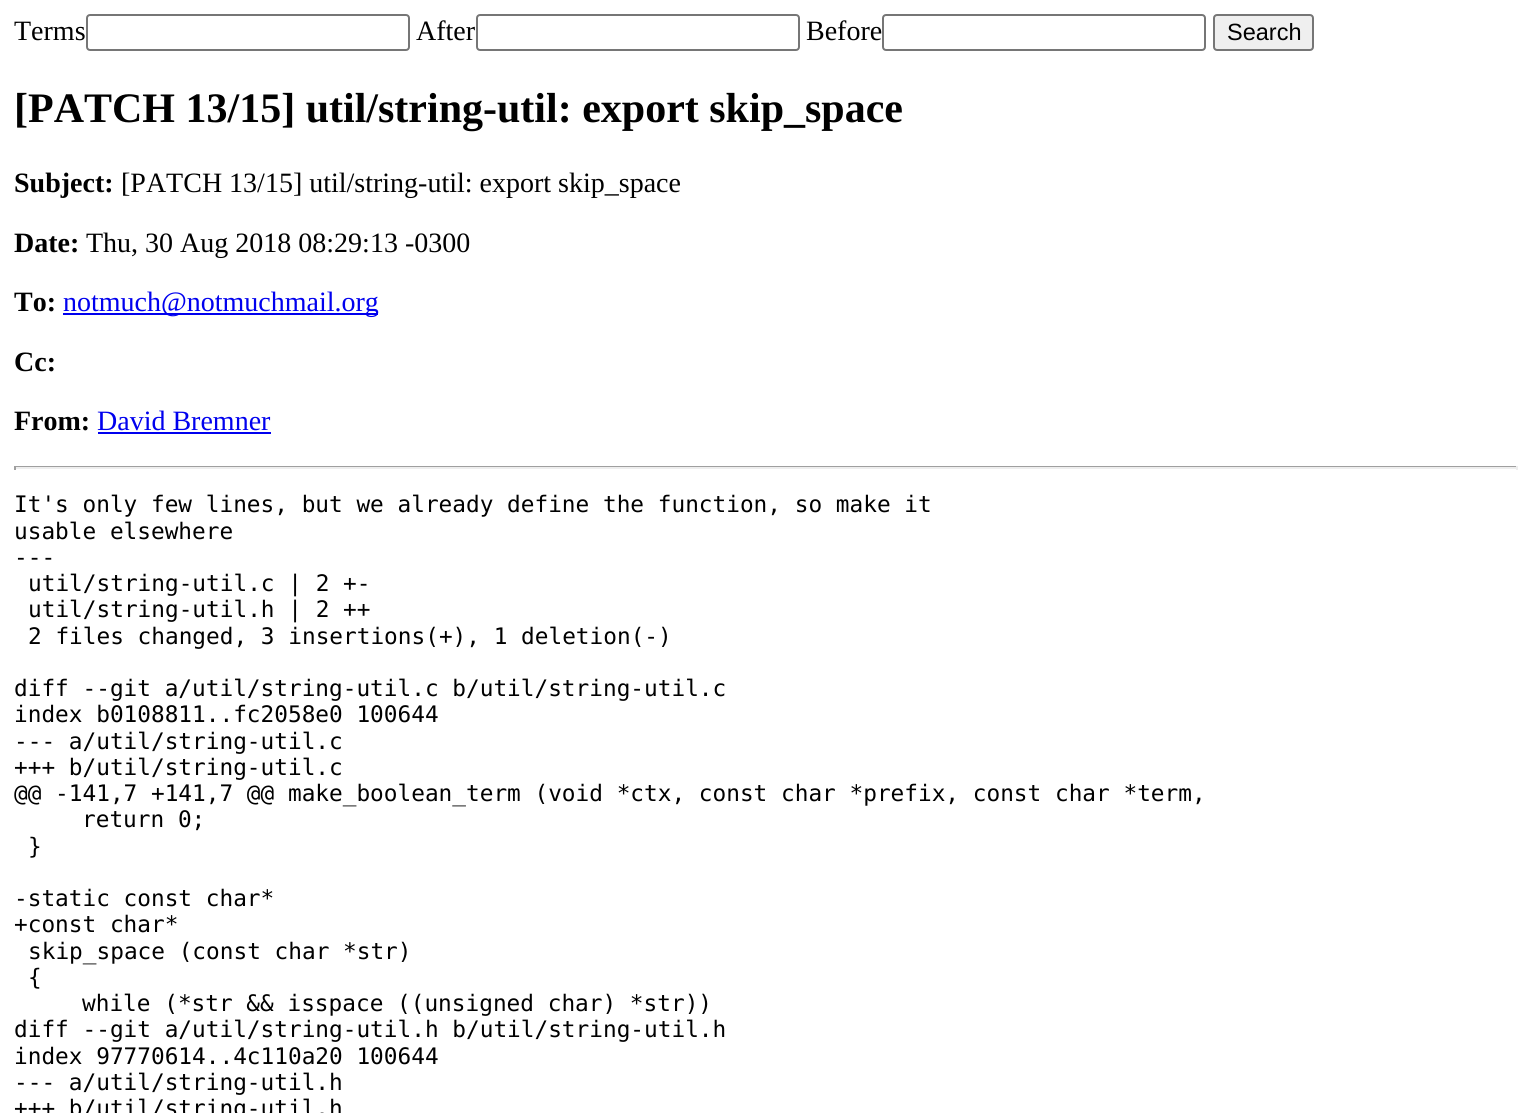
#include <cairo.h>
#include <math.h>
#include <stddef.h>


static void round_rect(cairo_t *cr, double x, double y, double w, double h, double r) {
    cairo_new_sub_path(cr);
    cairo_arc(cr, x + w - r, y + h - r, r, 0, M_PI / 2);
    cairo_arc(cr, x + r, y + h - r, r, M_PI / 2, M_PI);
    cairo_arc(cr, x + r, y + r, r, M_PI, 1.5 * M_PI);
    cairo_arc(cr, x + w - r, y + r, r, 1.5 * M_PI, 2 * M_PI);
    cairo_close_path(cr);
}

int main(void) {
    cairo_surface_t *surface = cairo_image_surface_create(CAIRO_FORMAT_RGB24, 1530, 1113);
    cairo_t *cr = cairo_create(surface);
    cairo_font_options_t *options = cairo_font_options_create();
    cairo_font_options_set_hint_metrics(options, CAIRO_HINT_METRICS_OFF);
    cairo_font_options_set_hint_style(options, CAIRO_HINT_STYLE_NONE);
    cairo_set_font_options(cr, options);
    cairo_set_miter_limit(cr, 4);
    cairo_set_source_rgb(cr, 1, 1, 1);
    cairo_paint(cr);
    cairo_select_font_face(cr, "Liberation Serif", CAIRO_FONT_SLANT_NORMAL, CAIRO_FONT_WEIGHT_NORMAL);
    cairo_set_font_size(cr, 28);
    cairo_set_source_rgb(cr, 0, 0, 0);
    cairo_move_to(cr, 14, 40);
    cairo_show_text(cr, "Terms");
    round_rect(cr, 87, 15, 322, 35, 3);
    cairo_set_source_rgb(cr, 0.463, 0.463, 0.463);
    cairo_stroke(cr);
    cairo_set_source_rgb(cr, 0, 0, 0);
    cairo_move_to(cr, 416, 40);
    cairo_show_text(cr, "After");
    round_rect(cr, 477, 15, 322, 35, 3);
    cairo_set_source_rgb(cr, 0.463, 0.463, 0.463);
    cairo_stroke(cr);
    cairo_set_source_rgb(cr, 0, 0, 0);
    cairo_move_to(cr, 806, 40);
    cairo_show_text(cr, "Before");
    round_rect(cr, 883, 15, 322, 35, 3);
    cairo_set_source_rgb(cr, 0.463, 0.463, 0.463);
    cairo_stroke(cr);
    cairo_set_source_rgb(cr, 0.937, 0.937, 0.937);
    round_rect(cr, 1214, 15, 99, 35, 3);
    cairo_fill_preserve(cr);
    cairo_set_source_rgb(cr, 0.463, 0.463, 0.463);
    cairo_stroke(cr);
    cairo_select_font_face(cr, "Liberation Sans", CAIRO_FONT_SLANT_NORMAL, CAIRO_FONT_WEIGHT_NORMAL);
    cairo_set_font_size(cr, 23.5);
    cairo_set_source_rgb(cr, 0, 0, 0);
    cairo_move_to(cr, 1227, 40);
    cairo_show_text(cr, "Search");
    cairo_select_font_face(cr, "Liberation Serif", CAIRO_FONT_SLANT_NORMAL, CAIRO_FONT_WEIGHT_BOLD);
    cairo_set_font_size(cr, 42);
    cairo_move_to(cr, 14, 122);
    cairo_show_text(cr, "[PATCH 13/15] util/string-util: export skip_space");
    cairo_set_font_size(cr, 28);
    cairo_move_to(cr, 14, 192);
    cairo_show_text(cr, "Subject:");
    cairo_select_font_face(cr, "Liberation Serif", CAIRO_FONT_SLANT_NORMAL, CAIRO_FONT_WEIGHT_NORMAL);
    cairo_move_to(cr, 121, 192);
    cairo_show_text(cr, "[PATCH 13/15] util/string-util: export skip_space");
    cairo_select_font_face(cr, "Liberation Serif", CAIRO_FONT_SLANT_NORMAL, CAIRO_FONT_WEIGHT_BOLD);
    cairo_move_to(cr, 14, 252);
    cairo_show_text(cr, "Date:");
    cairo_select_font_face(cr, "Liberation Serif", CAIRO_FONT_SLANT_NORMAL, CAIRO_FONT_WEIGHT_NORMAL);
    cairo_move_to(cr, 86, 252);
    cairo_show_text(cr, "Thu, 30 Aug 2018 08:29:13 -0300");
    cairo_select_font_face(cr, "Liberation Serif", CAIRO_FONT_SLANT_NORMAL, CAIRO_FONT_WEIGHT_BOLD);
    cairo_move_to(cr, 14, 311);
    cairo_show_text(cr, "To:");
    cairo_set_source_rgb(cr, 0, 0, 0.933);
    cairo_rectangle(cr, 63, 313, 315, 2);
    cairo_fill(cr);
    cairo_select_font_face(cr, "Liberation Serif", CAIRO_FONT_SLANT_NORMAL, CAIRO_FONT_WEIGHT_NORMAL);
    cairo_move_to(cr, 63, 311);
    cairo_show_text(cr, "notmuch@notmuchmail.org");
    cairo_select_font_face(cr, "Liberation Serif", CAIRO_FONT_SLANT_NORMAL, CAIRO_FONT_WEIGHT_BOLD);
    cairo_set_source_rgb(cr, 0, 0, 0);
    cairo_move_to(cr, 14, 371);
    cairo_show_text(cr, "Cc:");
    cairo_move_to(cr, 14, 430);
    cairo_show_text(cr, "From:");
    cairo_select_font_face(cr, "Liberation Serif", CAIRO_FONT_SLANT_NORMAL, CAIRO_FONT_WEIGHT_NORMAL);
    cairo_set_source_rgb(cr, 0, 0, 0.933);
    cairo_move_to(cr, 97, 430);
    cairo_show_text(cr, "David Bremner");
    cairo_rectangle(cr, 98, 432, 173, 2);
    cairo_fill(cr);
    cairo_set_source_rgb(cr, 0.624, 0.624, 0.624);
    cairo_rectangle(cr, 14, 466, 1503, 1);
    cairo_fill(cr);
    cairo_set_source_rgb(cr, 0.933, 0.933, 0.933);
    cairo_rectangle(cr, 1516, 466, 2, 4);
    cairo_fill(cr);
    cairo_rectangle(cr, 14, 467, 1503, 2);
    cairo_fill(cr);
    cairo_set_source_rgb(cr, 0.624, 0.624, 0.624);
    cairo_rectangle(cr, 14, 466, 2, 4);
    cairo_fill(cr);
    cairo_select_font_face(cr, "DejaVu Sans Mono", CAIRO_FONT_SLANT_NORMAL, CAIRO_FONT_WEIGHT_NORMAL);
    cairo_set_font_size(cr, 22.75);
    cairo_set_source_rgb(cr, 0, 0, 0);
    cairo_move_to(cr, 14, 512);
    cairo_show_text(cr, "It's only few lines, but we already define the function, so make it");
    cairo_move_to(cr, 14, 539);
    cairo_show_text(cr, "usable elsewhere");
    cairo_move_to(cr, 14, 565);
    cairo_show_text(cr, "---");
    cairo_move_to(cr, 28, 591);
    cairo_show_text(cr, "util/string-util.c | 2 +-");
    cairo_move_to(cr, 28, 617);
    cairo_show_text(cr, "util/string-util.h | 2 ++");
    cairo_move_to(cr, 28, 644);
    cairo_show_text(cr, "2 files changed, 3 insertions(+), 1 deletion(-)");
    cairo_move_to(cr, 14, 696);
    cairo_show_text(cr, "diff --git a/util/string-util.c b/util/string-util.c");
    cairo_move_to(cr, 14, 722);
    cairo_show_text(cr, "index b0108811..fc2058e0 100644");
    cairo_move_to(cr, 14, 749);
    cairo_show_text(cr, "--- a/util/string-util.c");
    cairo_move_to(cr, 14, 775);
    cairo_show_text(cr, "+++ b/util/string-util.c");
    cairo_move_to(cr, 14, 801);
    cairo_show_text(cr, "@@ -141,7 +141,7 @@ make_boolean_term (void *ctx, const char *prefix, const char *term,");
    cairo_move_to(cr, 82, 827);
    cairo_show_text(cr, "return 0;");
    cairo_move_to(cr, 28, 854);
    cairo_show_text(cr, "}");
    cairo_move_to(cr, 14, 906);
    cairo_show_text(cr, "-static const char*");
    cairo_move_to(cr, 14, 932);
    cairo_show_text(cr, "+const char*");
    cairo_move_to(cr, 28, 959);
    cairo_show_text(cr, "skip_space (const char *str)");
    cairo_move_to(cr, 28, 985);
    cairo_show_text(cr, "{");
    cairo_move_to(cr, 82, 1011);
    cairo_show_text(cr, "while (*str && isspace ((unsigned char) *str))");
    cairo_move_to(cr, 14, 1037);
    cairo_show_text(cr, "diff --git a/util/string-util.h b/util/string-util.h");
    cairo_move_to(cr, 14, 1064);
    cairo_show_text(cr, "index 97770614..4c110a20 100644");
    cairo_move_to(cr, 14, 1090);
    cairo_show_text(cr, "--- a/util/string-util.h");
    cairo_move_to(cr, 14, 1116);
    cairo_show_text(cr, "+++ b/util/string-util.h");
    cairo_surface_write_to_png(surface, "page.png");
    cairo_font_options_destroy(options);
    cairo_destroy(cr);
    cairo_surface_destroy(surface);
    return 0;
}
